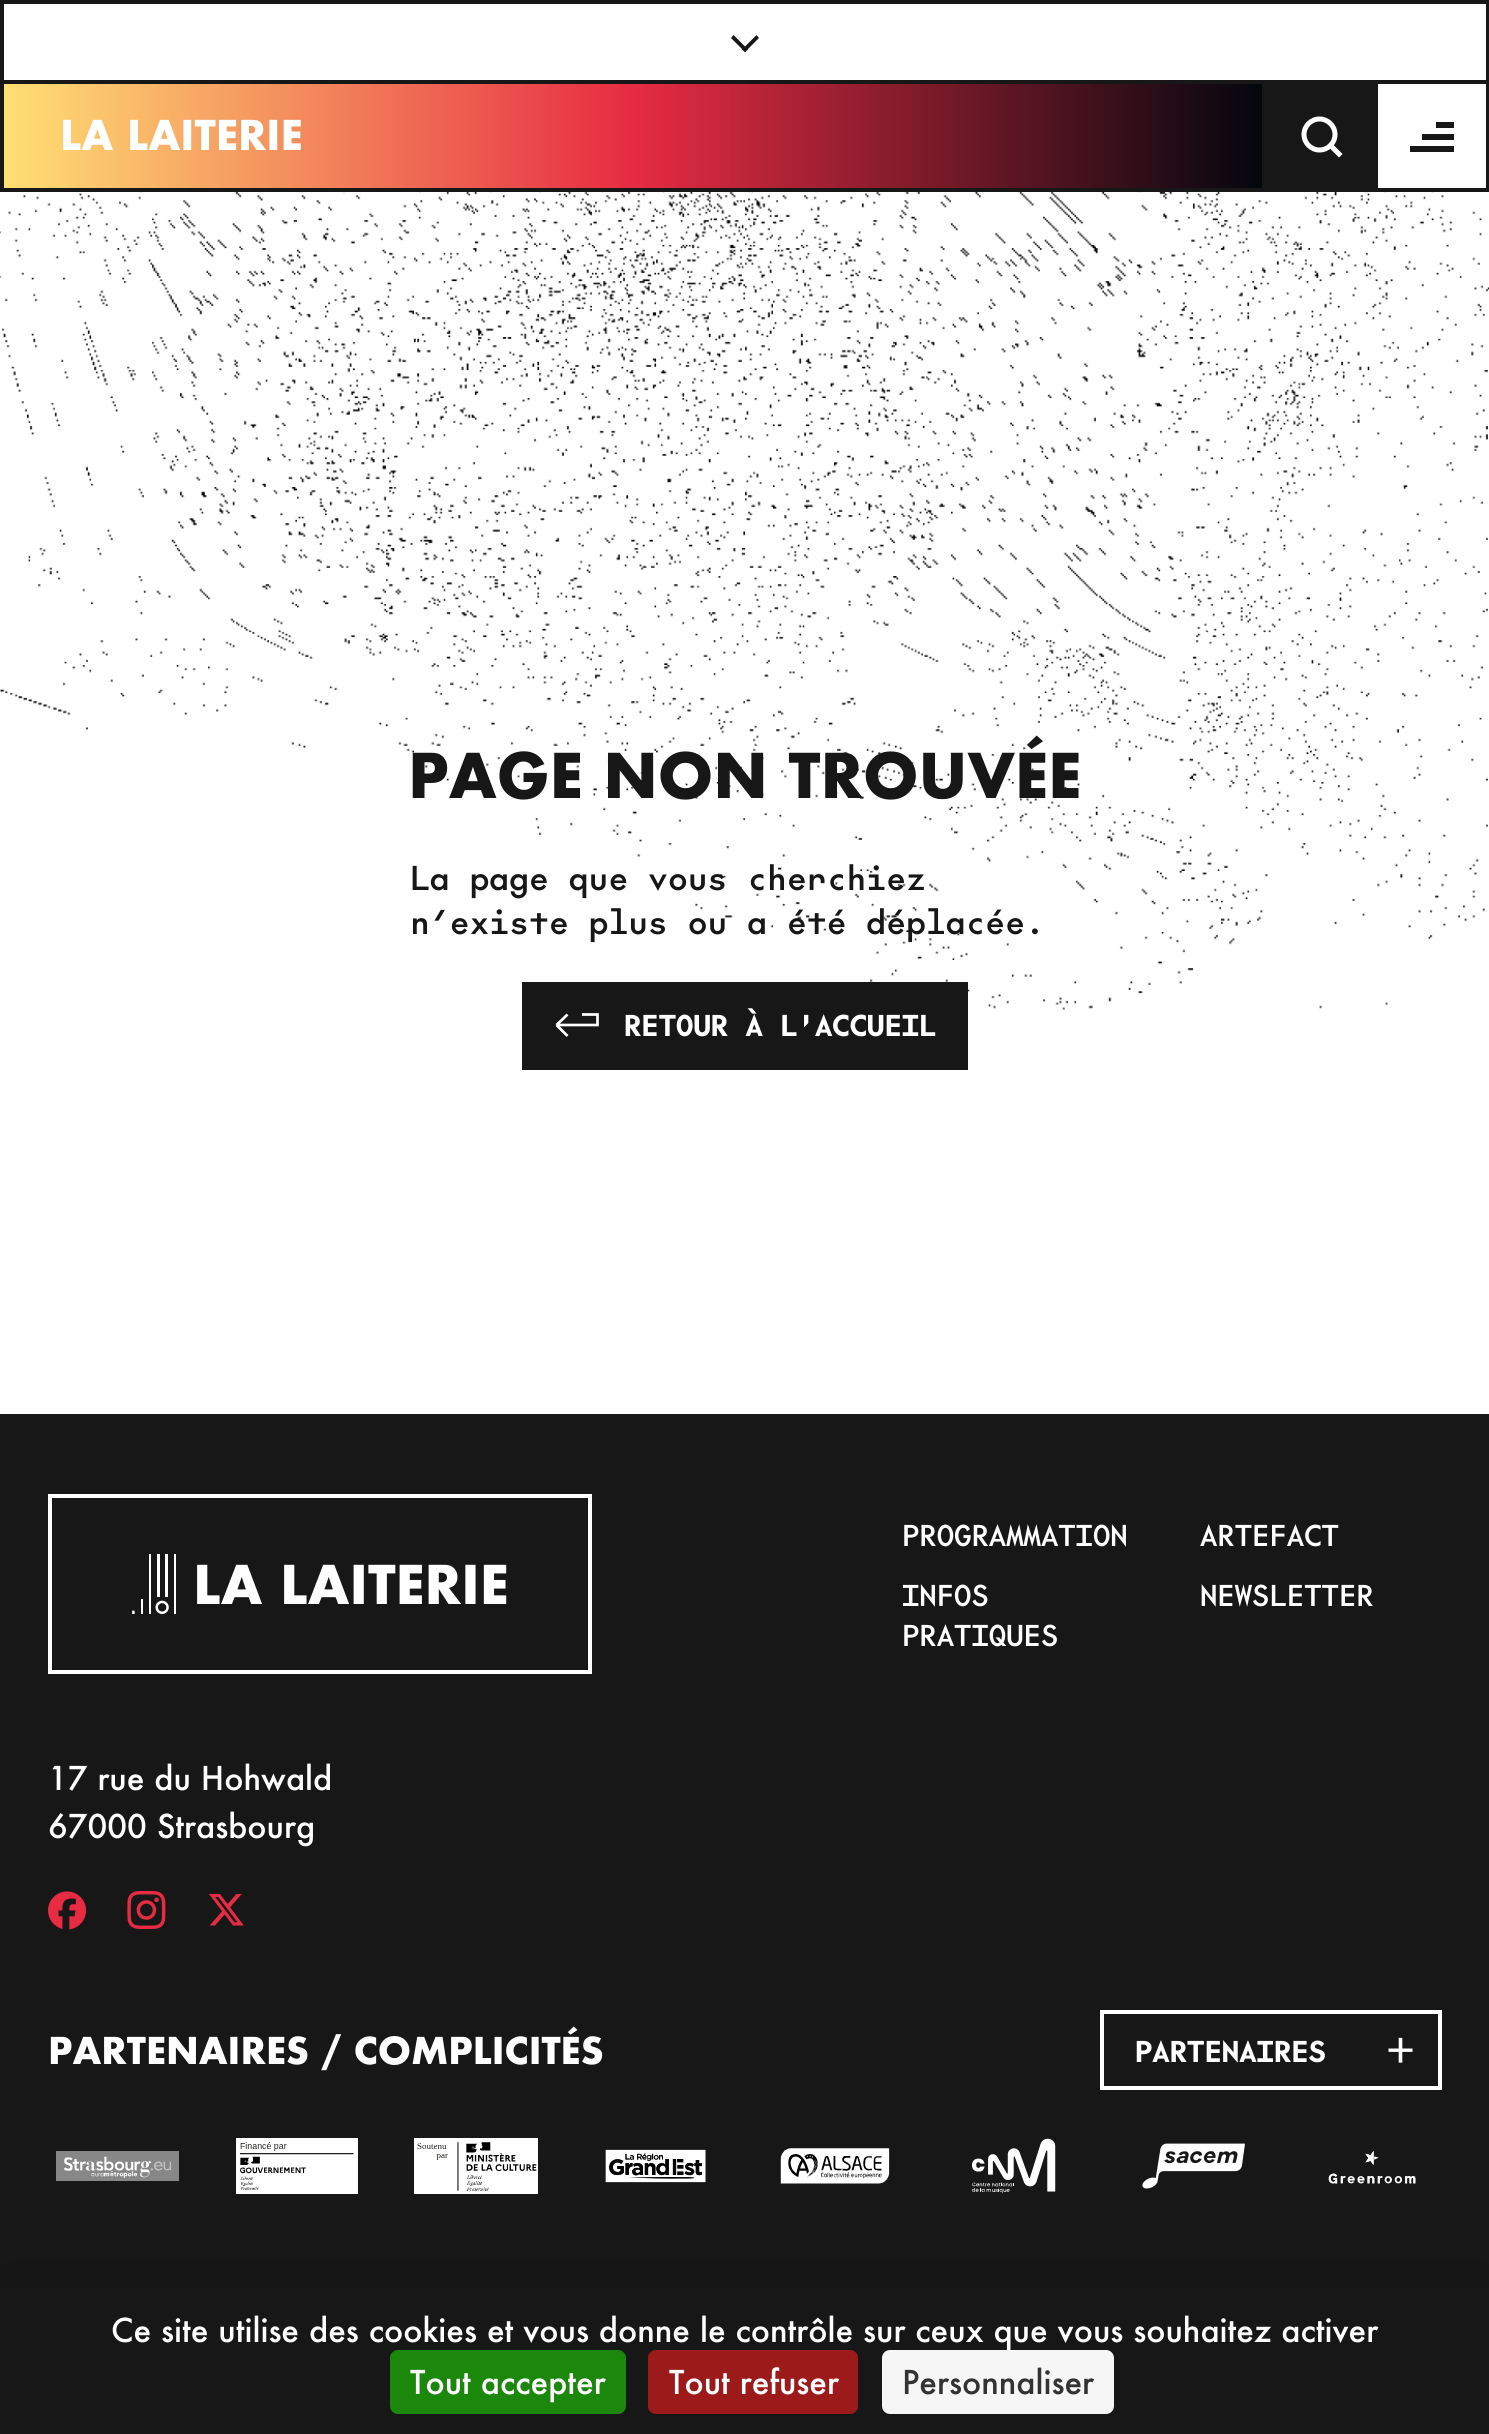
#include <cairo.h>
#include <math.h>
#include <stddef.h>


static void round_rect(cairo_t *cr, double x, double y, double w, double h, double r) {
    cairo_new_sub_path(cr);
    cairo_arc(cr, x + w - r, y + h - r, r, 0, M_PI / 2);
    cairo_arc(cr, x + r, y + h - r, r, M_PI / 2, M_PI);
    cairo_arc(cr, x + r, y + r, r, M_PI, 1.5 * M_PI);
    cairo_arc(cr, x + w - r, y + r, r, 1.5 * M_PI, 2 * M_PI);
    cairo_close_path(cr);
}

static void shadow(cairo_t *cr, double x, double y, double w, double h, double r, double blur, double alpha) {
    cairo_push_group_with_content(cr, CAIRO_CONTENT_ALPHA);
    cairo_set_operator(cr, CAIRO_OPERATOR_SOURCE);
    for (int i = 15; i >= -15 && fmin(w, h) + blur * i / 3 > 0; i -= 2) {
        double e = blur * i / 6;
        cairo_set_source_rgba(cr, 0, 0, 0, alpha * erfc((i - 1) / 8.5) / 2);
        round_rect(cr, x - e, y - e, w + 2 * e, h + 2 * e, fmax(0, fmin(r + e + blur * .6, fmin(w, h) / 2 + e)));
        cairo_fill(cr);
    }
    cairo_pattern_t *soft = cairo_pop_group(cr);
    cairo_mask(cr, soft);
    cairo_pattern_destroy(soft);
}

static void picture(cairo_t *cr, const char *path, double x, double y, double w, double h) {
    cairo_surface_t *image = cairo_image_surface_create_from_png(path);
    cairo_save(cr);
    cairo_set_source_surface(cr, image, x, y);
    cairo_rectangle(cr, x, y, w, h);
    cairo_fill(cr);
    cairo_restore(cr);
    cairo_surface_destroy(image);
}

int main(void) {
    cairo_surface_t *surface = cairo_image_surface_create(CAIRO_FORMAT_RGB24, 1489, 2434);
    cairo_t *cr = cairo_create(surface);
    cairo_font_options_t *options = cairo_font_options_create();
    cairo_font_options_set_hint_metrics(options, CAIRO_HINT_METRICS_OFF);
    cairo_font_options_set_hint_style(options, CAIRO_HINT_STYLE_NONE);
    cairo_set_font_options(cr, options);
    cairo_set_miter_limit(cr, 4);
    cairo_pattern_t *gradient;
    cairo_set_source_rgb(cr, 1, 1, 1);
    cairo_paint(cr);
    cairo_set_source_rgb(cr, 0.09, 0.09, 0.09);
    cairo_rectangle(cr, 0, 0, 1489, 4);
    cairo_fill(cr);
    cairo_rectangle(cr, 1486, 0, 3, 80);
    cairo_fill(cr);
    cairo_rectangle(cr, 0, 0, 4, 80);
    cairo_fill(cr);
    cairo_new_path(cr);
    cairo_move_to(cr, 756.5, 35);
    cairo_line_to(cr, 759, 38);
    cairo_line_to(cr, 745, 52);
    cairo_line_to(cr, 742, 49.5);
    cairo_close_path(cr);
    cairo_fill(cr);
    cairo_new_path(cr);
    cairo_move_to(cr, 733.5, 35);
    cairo_line_to(cr, 748, 49.5);
    cairo_line_to(cr, 745, 52);
    cairo_line_to(cr, 731, 38);
    cairo_close_path(cr);
    cairo_fill(cr);
    gradient = cairo_pattern_create_linear(4, 136, 1262, 136);
    cairo_pattern_add_color_stop_rgba(gradient, 0, 1, 0.878, 0.455, 1);
    cairo_pattern_add_color_stop_rgba(gradient, 0.5, 0.902, 0.169, 0.259, 1);
    cairo_pattern_add_color_stop_rgba(gradient, 1, 0.012, 0.027, 0.055, 1);
    cairo_set_source(cr, gradient);
    cairo_pattern_destroy(gradient);
    cairo_rectangle(cr, 4, 84, 1258, 104);
    cairo_fill(cr);
    cairo_rectangle(cr, 2, 82, 1262, 108);
    cairo_set_source_rgb(cr, 0.09, 0.09, 0.09);
    cairo_set_line_width(cr, 4);
    cairo_stroke(cr);
    cairo_select_font_face(cr, "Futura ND", CAIRO_FONT_SLANT_NORMAL, CAIRO_FONT_WEIGHT_BOLD);
    cairo_set_font_size(cr, 40);
    cairo_set_source_rgb(cr, 1, 1, 1);
    cairo_move_to(cr, 60, 150);
    cairo_show_text(cr, "LA LAITERIE");
    cairo_set_source_rgb(cr, 0.09, 0.09, 0.09);
    cairo_rectangle(cr, 1266, 80, 112, 112);
    cairo_fill(cr);
    cairo_new_path(cr);
    cairo_move_to(cr, 1319.5, 150);
    cairo_curve_to(cr, 1328, 150, 1335, 143, 1335, 134.5);
    cairo_curve_to(cr, 1335, 126, 1328, 119, 1319.5, 119);
    cairo_curve_to(cr, 1311, 119, 1304, 126, 1304, 134.5);
    cairo_curve_to(cr, 1304, 143, 1311, 150, 1319.5, 150);
    cairo_close_path(cr);
    cairo_set_source_rgb(cr, 1, 1, 1);
    cairo_set_line_width(cr, 5);
    cairo_set_line_cap(cr, CAIRO_LINE_CAP_ROUND);
    cairo_set_line_join(cr, CAIRO_LINE_JOIN_ROUND);
    cairo_stroke(cr);
    cairo_new_path(cr);
    cairo_move_to(cr, 1339, 154);
    cairo_line_to(cr, 1330.5, 145.5);
    cairo_set_line_cap(cr, CAIRO_LINE_CAP_SQUARE);
    cairo_stroke(cr);
    cairo_set_source_rgb(cr, 0.09, 0.09, 0.09);
    cairo_rectangle(cr, 1378, 80, 111, 4);
    cairo_fill(cr);
    cairo_rectangle(cr, 1486, 80, 3, 112);
    cairo_fill(cr);
    cairo_rectangle(cr, 1378, 188, 111, 4);
    cairo_fill(cr);
    cairo_rectangle(cr, 1436, 122, 18, 6);
    cairo_fill(cr);
    cairo_rectangle(cr, 1422, 134, 32, 6);
    cairo_fill(cr);
    cairo_rectangle(cr, 1410, 146, 44, 6);
    cairo_fill(cr);
    picture(cr, "img1.png", 0, 192, 1489, 818);
    cairo_set_font_size(cr, 60);
    cairo_move_to(cr, 408, 798);
    cairo_show_text(cr, "PAGE NON TROUVÉE");
    cairo_select_font_face(cr, "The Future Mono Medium", CAIRO_FONT_SLANT_NORMAL, CAIRO_FONT_WEIGHT_NORMAL);
    cairo_set_font_size(cr, 32);
    cairo_move_to(cr, 410, 890);
    cairo_show_text(cr, "La page que vous cherchiez");
    cairo_move_to(cr, 410, 934);
    cairo_show_text(cr, "n’existe plus ou a été déplacée.");
    cairo_rectangle(cr, 522, 982, 446, 88);
    cairo_fill(cr);
    cairo_new_path(cr);
    cairo_move_to(cr, 556.5, 1025);
    cairo_line_to(cr, 567.5, 1014.5);
    cairo_move_to(cr, 556.5, 1025);
    cairo_line_to(cr, 597.5, 1025);
    cairo_line_to(cr, 597.5, 1014.5);
    cairo_line_to(cr, 582, 1014.5);
    cairo_move_to(cr, 556.5, 1025);
    cairo_line_to(cr, 567.5, 1036);
    cairo_set_source_rgb(cr, 1, 1, 1);
    cairo_set_line_width(cr, 2.7);
    cairo_set_line_cap(cr, CAIRO_LINE_CAP_BUTT);
    cairo_set_line_join(cr, CAIRO_LINE_JOIN_MITER);
    cairo_stroke(cr);
    cairo_select_font_face(cr, "The Future Mono", CAIRO_FONT_SLANT_NORMAL, CAIRO_FONT_WEIGHT_BOLD);
    cairo_set_font_size(cr, 28);
    cairo_move_to(cr, 624, 1036);
    cairo_show_text(cr, "RETOUR À L'ACCUEIL");
    cairo_set_source_rgb(cr, 0.09, 0.09, 0.09);
    cairo_rectangle(cr, 0, 1414, 1489, 874);
    cairo_fill(cr);
    cairo_rectangle(cr, 50, 1496, 540, 176);
    cairo_set_source_rgb(cr, 1, 1, 1);
    cairo_set_line_width(cr, 4);
    cairo_stroke(cr);
    picture(cr, "img2.png", 132, 1554, 44, 60);
    cairo_select_font_face(cr, "Futura ND", CAIRO_FONT_SLANT_NORMAL, CAIRO_FONT_WEIGHT_BOLD);
    cairo_set_font_size(cr, 52);
    cairo_move_to(cr, 193, 1604);
    cairo_show_text(cr, "LA LAITERIE");
    cairo_select_font_face(cr, "The Future Mono Medium", CAIRO_FONT_SLANT_NORMAL, CAIRO_FONT_WEIGHT_NORMAL);
    cairo_set_font_size(cr, 28);
    cairo_move_to(cr, 902, 1546);
    cairo_show_text(cr, "PROGRAMMATION");
    cairo_move_to(cr, 902, 1606);
    cairo_show_text(cr, "INFOS");
    cairo_move_to(cr, 902, 1646);
    cairo_show_text(cr, "PRATIQUES");
    cairo_move_to(cr, 1200, 1546);
    cairo_show_text(cr, "ARTEFACT");
    cairo_move_to(cr, 1200, 1606);
    cairo_show_text(cr, "NEWSLETTER");
    cairo_select_font_face(cr, "Futura ND Medium", CAIRO_FONT_SLANT_NORMAL, CAIRO_FONT_WEIGHT_NORMAL);
    cairo_set_font_size(cr, 32);
    cairo_move_to(cr, 48, 1790);
    cairo_show_text(cr, "17 rue du Hohwald");
    cairo_move_to(cr, 48, 1838);
    cairo_show_text(cr, "67000 Strasbourg");
    picture(cr, "img3.png", 48, 1891, 38, 39);
    picture(cr, "img4.png", 127, 1890, 39, 40);
    picture(cr, "img5.png", 209, 1894, 35, 32);
    cairo_select_font_face(cr, "Futura ND", CAIRO_FONT_SLANT_NORMAL, CAIRO_FONT_WEIGHT_BOLD);
    cairo_set_font_size(cr, 36);
    cairo_move_to(cr, 48, 2064);
    cairo_show_text(cr, "PARTENAIRES / COMPLICITÉS");
    cairo_rectangle(cr, 1102, 2012, 338, 76);
    cairo_stroke(cr);
    cairo_select_font_face(cr, "The Future Mono", CAIRO_FONT_SLANT_NORMAL, CAIRO_FONT_WEIGHT_BOLD);
    cairo_set_font_size(cr, 28);
    cairo_move_to(cr, 1135, 2062);
    cairo_show_text(cr, "PARTENAIRES");
    picture(cr, "img6.png", 1388, 2037, 25, 26);
    picture(cr, "img7.png", 56, 2151, 123, 30);
    picture(cr, "img8.png", 236, 2138, 122, 56);
    picture(cr, "img9.png", 414, 2138, 124, 56);
    picture(cr, "img10.png", 605, 2149, 101, 34);
    picture(cr, "img11.png", 780, 2148, 110, 36);
    picture(cr, "img12.png", 972, 2138, 84, 56);
    picture(cr, "img13.png", 1142, 2143, 103, 46);
    picture(cr, "img14.png", 1328, 2151, 88, 33);
    cairo_set_source_rgb(cr, 0, 0, 0);
    shadow(cr, 0, 2328, 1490, 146, 0, 60, 0.25);
    cairo_set_source_rgb(cr, 0.09, 0.09, 0.09);
    cairo_rectangle(cr, 0, 2288, 1489, 146);
    cairo_fill(cr);
    cairo_save(cr);
    cairo_rectangle(cr, 92, 2308, 1306, 42);
    cairo_clip(cr);
    cairo_select_font_face(cr, "Futura ND Medium", CAIRO_FONT_SLANT_NORMAL, CAIRO_FONT_WEIGHT_NORMAL);
    cairo_set_font_size(cr, 32);
    cairo_set_source_rgb(cr, 1, 1, 1);
    cairo_move_to(cr, 111, 2342);
    cairo_show_text(cr, "Ce site utilise des cookies et vous donne le contrôle sur ceux que vous souhaitez activer");
    cairo_restore(cr);
    cairo_set_source_rgb(cr, 0.106, 0.529, 0.043);
    round_rect(cr, 390, 2350, 236, 64, 8);
    cairo_fill(cr);
    cairo_select_font_face(cr, "Futura ND Medium", CAIRO_FONT_SLANT_NORMAL, CAIRO_FONT_WEIGHT_NORMAL);
    cairo_set_font_size(cr, 32);
    cairo_set_source_rgb(cr, 1, 1, 1);
    cairo_move_to(cr, 410, 2394);
    cairo_show_text(cr, "Tout accepter");
    cairo_set_source_rgb(cr, 0.612, 0.102, 0.102);
    round_rect(cr, 648, 2350, 210, 64, 8);
    cairo_fill(cr);
    cairo_set_source_rgb(cr, 1, 1, 1);
    cairo_move_to(cr, 669, 2394);
    cairo_show_text(cr, "Tout refuser");
    cairo_set_source_rgb(cr, 0.961, 0.961, 0.961);
    round_rect(cr, 882, 2350, 232, 64, 8);
    cairo_fill(cr);
    cairo_set_source_rgb(cr, 0.2, 0.2, 0.2);
    cairo_move_to(cr, 902, 2394);
    cairo_show_text(cr, "Personnaliser");
    cairo_surface_write_to_png(surface, "page.png");
    cairo_font_options_destroy(options);
    cairo_destroy(cr);
    cairo_surface_destroy(surface);
    return 0;
}
